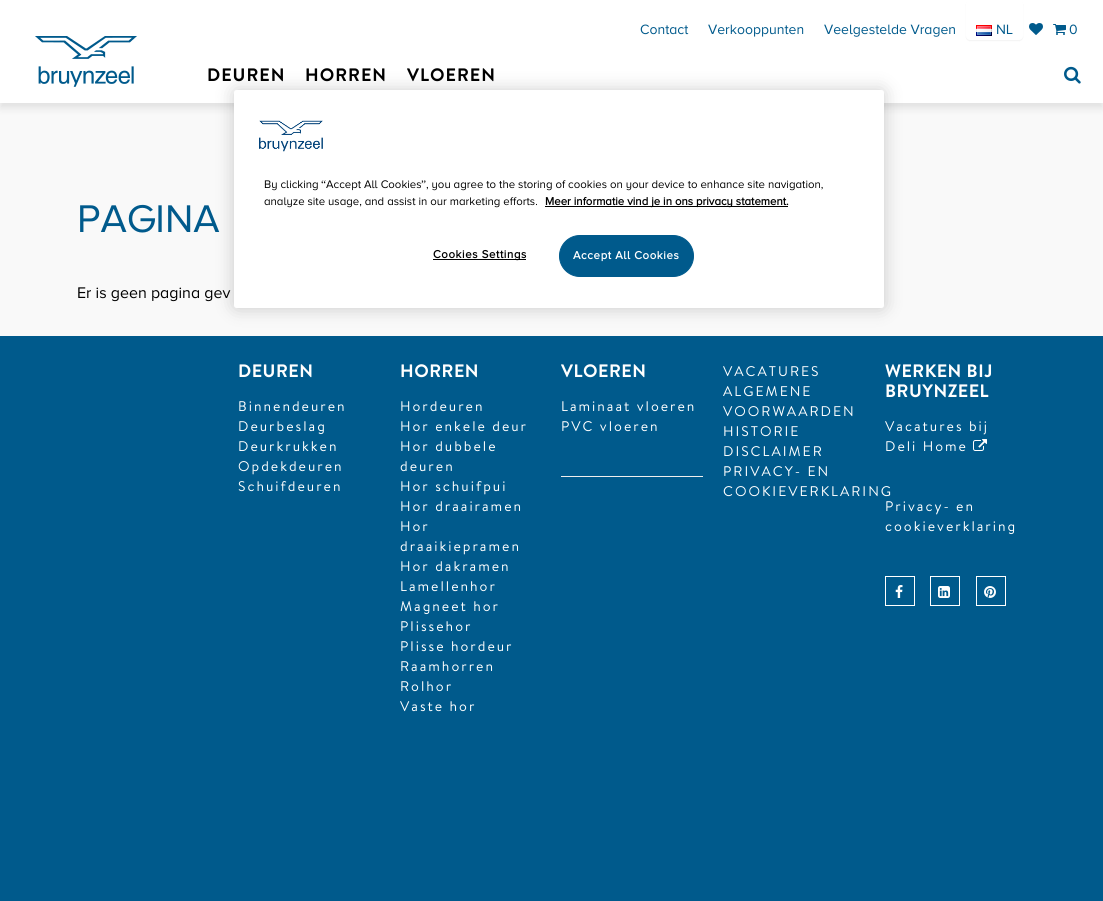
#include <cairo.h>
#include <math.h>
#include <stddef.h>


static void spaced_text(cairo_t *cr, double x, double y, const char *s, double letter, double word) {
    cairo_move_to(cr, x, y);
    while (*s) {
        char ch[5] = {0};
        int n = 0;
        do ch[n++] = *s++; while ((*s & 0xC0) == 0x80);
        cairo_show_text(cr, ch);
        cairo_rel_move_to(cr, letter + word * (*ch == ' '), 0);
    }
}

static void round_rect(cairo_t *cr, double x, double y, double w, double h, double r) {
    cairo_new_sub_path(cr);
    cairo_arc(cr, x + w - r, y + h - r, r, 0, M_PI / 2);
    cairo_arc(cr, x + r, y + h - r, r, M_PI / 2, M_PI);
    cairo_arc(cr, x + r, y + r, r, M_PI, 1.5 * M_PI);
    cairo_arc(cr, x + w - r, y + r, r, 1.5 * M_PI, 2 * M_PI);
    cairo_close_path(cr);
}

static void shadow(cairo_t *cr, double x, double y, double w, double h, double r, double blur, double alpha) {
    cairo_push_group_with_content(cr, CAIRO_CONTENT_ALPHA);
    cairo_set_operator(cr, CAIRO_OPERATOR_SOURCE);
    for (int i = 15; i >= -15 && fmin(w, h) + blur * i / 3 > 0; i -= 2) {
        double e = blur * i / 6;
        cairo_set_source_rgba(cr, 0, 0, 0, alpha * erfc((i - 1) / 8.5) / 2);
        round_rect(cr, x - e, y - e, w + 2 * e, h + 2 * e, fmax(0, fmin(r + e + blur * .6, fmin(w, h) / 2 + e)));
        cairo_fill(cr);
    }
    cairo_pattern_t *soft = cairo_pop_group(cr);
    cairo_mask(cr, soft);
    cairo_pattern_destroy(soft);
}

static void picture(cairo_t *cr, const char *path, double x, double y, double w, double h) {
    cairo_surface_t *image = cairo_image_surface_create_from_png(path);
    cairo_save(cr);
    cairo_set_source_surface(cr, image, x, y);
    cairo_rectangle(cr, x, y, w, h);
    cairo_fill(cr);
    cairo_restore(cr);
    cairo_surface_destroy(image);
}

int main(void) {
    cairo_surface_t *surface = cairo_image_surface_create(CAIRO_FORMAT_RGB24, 1103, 901);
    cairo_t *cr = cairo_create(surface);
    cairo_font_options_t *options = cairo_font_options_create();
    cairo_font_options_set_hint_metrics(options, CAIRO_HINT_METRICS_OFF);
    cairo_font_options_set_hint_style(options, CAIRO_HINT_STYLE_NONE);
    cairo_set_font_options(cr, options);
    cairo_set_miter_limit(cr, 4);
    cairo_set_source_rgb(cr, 0.973, 0.973, 0.973);
    cairo_paint(cr);
    cairo_set_source_rgb(cr, 0, 0, 0);
    shadow(cr, 0, 5, 1103, 103, 0, 4, 0.1);
    cairo_set_source_rgb(cr, 1, 1, 1);
    cairo_rectangle(cr, 0, 0, 1103, 103);
    cairo_fill(cr);
    picture(cr, "img1.png", 35, 36, 102, 51);
    cairo_select_font_face(cr, "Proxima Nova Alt", CAIRO_FONT_SLANT_NORMAL, CAIRO_FONT_WEIGHT_NORMAL);
    cairo_set_font_size(cr, 14);
    cairo_set_source_rgb(cr, 0, 0.353, 0.549);
    cairo_move_to(cr, 640, 34);
    cairo_show_text(cr, "Contact");
    cairo_move_to(cr, 708, 34);
    cairo_show_text(cr, "Verkooppunten");
    cairo_move_to(cr, 824, 34);
    cairo_show_text(cr, "Veelgestelde Vragen");
    cairo_set_source_rgb(cr, 0, 0, 0);
    shadow(cr, 966, 1, 57, 40, 4, 0.5, 0.05);
    cairo_set_source_rgb(cr, 1, 1, 1);
    round_rect(cr, 966, 0, 57, 40, 4);
    cairo_fill(cr);
    picture(cr, "img2.png", 976, 25, 16, 11);
    cairo_set_source_rgb(cr, 0, 0.353, 0.549);
    cairo_move_to(cr, 996, 34);
    cairo_show_text(cr, "NL");
    picture(cr, "img3.png", 1029, 23, 14, 12);
    picture(cr, "img4.png", 1053, 24, 13, 11);
    cairo_move_to(cr, 1069, 34);
    cairo_show_text(cr, "0");
    cairo_select_font_face(cr, "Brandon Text", CAIRO_FONT_SLANT_NORMAL, CAIRO_FONT_WEIGHT_BOLD);
    cairo_set_font_size(cr, 18);
    cairo_set_source_rgb(cr, 0, 0, 0);
    spaced_text(cr, 207, 81, "DEUREN", 1, 0);
    spaced_text(cr, 305, 81, "HORREN", 1, 0);
    spaced_text(cr, 407, 81, "VLOEREN", 1, 0);
    picture(cr, "img5.png", 1064, 66, 17, 18);
    cairo_select_font_face(cr, "Proxima Nova Alt", CAIRO_FONT_SLANT_NORMAL, CAIRO_FONT_WEIGHT_NORMAL);
    cairo_set_font_size(cr, 40);
    cairo_set_source_rgb(cr, 0, 0.353, 0.549);
    cairo_move_to(cr, 77, 232);
    cairo_show_text(cr, "PAGINA");
    cairo_set_font_size(cr, 16);
    cairo_set_source_rgb(cr, 0, 0, 0);
    cairo_move_to(cr, 77, 298);
    cairo_show_text(cr, "Er is geen pagina gev");
    cairo_set_source_rgb(cr, 0, 0.353, 0.549);
    cairo_rectangle(cr, 0, 336, 1103, 565);
    cairo_fill(cr);
    cairo_select_font_face(cr, "Brandon Text", CAIRO_FONT_SLANT_NORMAL, CAIRO_FONT_WEIGHT_BOLD);
    cairo_set_font_size(cr, 18);
    cairo_set_source_rgb(cr, 1, 1, 1);
    spaced_text(cr, 238, 377, "DEUREN", 0.5, 0);
    cairo_select_font_face(cr, "Brandon Text", CAIRO_FONT_SLANT_NORMAL, CAIRO_FONT_WEIGHT_NORMAL);
    cairo_set_font_size(cr, 14);
    spaced_text(cr, 238, 411, "Binnendeuren", 2, 0);
    spaced_text(cr, 238, 431, "Deurbeslag", 2, 0);
    spaced_text(cr, 238, 451, "Deurkrukken", 2, 0);
    spaced_text(cr, 238, 471, "Opdekdeuren", 2, 0);
    spaced_text(cr, 238, 491, "Schuifdeuren", 2, 0);
    cairo_select_font_face(cr, "Brandon Text", CAIRO_FONT_SLANT_NORMAL, CAIRO_FONT_WEIGHT_BOLD);
    cairo_set_font_size(cr, 18);
    spaced_text(cr, 400, 377, "HORREN", 0.5, 0);
    cairo_select_font_face(cr, "Brandon Text", CAIRO_FONT_SLANT_NORMAL, CAIRO_FONT_WEIGHT_NORMAL);
    cairo_set_font_size(cr, 14);
    spaced_text(cr, 400, 411, "Hordeuren", 2, 0);
    spaced_text(cr, 400, 431, "Hor enkele deur", 2, 0);
    spaced_text(cr, 400, 451, "Hor dubbele", 2, 0);
    spaced_text(cr, 400, 471, "deuren", 2, 0);
    spaced_text(cr, 400, 491, "Hor schuifpui", 2, 0);
    spaced_text(cr, 400, 511, "Hor draairamen", 2, 0);
    spaced_text(cr, 400, 531, "Hor", 2, 0);
    spaced_text(cr, 400, 551, "draaikiepramen", 2, 0);
    spaced_text(cr, 400, 571, "Hor dakramen", 2, 0);
    spaced_text(cr, 400, 591, "Lamellenhor", 2, 0);
    spaced_text(cr, 400, 611, "Magneet hor", 2, 0);
    spaced_text(cr, 400, 631, "Plissehor", 2, 0);
    spaced_text(cr, 400, 651, "Plisse hordeur", 2, 0);
    spaced_text(cr, 400, 671, "Raamhorren", 2, 0);
    spaced_text(cr, 400, 691, "Rolhor", 2, 0);
    spaced_text(cr, 400, 711, "Vaste hor", 2, 0);
    cairo_select_font_face(cr, "Brandon Text", CAIRO_FONT_SLANT_NORMAL, CAIRO_FONT_WEIGHT_BOLD);
    cairo_set_font_size(cr, 18);
    spaced_text(cr, 561, 377, "VLOEREN", 0.5, 0);
    cairo_select_font_face(cr, "Brandon Text", CAIRO_FONT_SLANT_NORMAL, CAIRO_FONT_WEIGHT_NORMAL);
    cairo_set_font_size(cr, 14);
    spaced_text(cr, 561, 411, "Laminaat vloeren", 2, 0);
    spaced_text(cr, 561, 431, "PVC vloeren", 2, 0);
    cairo_set_source_rgb(cr, 0.933, 0.933, 0.933);
    cairo_rectangle(cr, 561, 476, 142, 1);
    cairo_fill(cr);
    cairo_set_source_rgb(cr, 1, 1, 1);
    spaced_text(cr, 723, 376, "VACATURES", 2, 0);
    spaced_text(cr, 723, 396, "ALGEMENE", 2, 0);
    spaced_text(cr, 723, 416, "VOORWAARDEN", 2, 0);
    spaced_text(cr, 723, 436, "HISTORIE", 2, 0);
    spaced_text(cr, 723, 456, "DISCLAIMER", 2, 0);
    spaced_text(cr, 723, 476, "PRIVACY- EN", 2, 0);
    spaced_text(cr, 723, 496, "COOKIEVERKLARING", 2, 0);
    cairo_select_font_face(cr, "Brandon Text", CAIRO_FONT_SLANT_NORMAL, CAIRO_FONT_WEIGHT_BOLD);
    cairo_set_font_size(cr, 18);
    spaced_text(cr, 885, 377, "WERKEN BIJ", 0.5, 0);
    spaced_text(cr, 885, 397, "BRUYNZEEL", 0.5, 0);
    cairo_select_font_face(cr, "Brandon Text", CAIRO_FONT_SLANT_NORMAL, CAIRO_FONT_WEIGHT_NORMAL);
    cairo_set_font_size(cr, 14);
    spaced_text(cr, 885, 431, "Vacatures bij", 2, 0);
    spaced_text(cr, 885, 451, "Deli Home", 2, 0);
    picture(cr, "img6.png", 973, 439, 14, 12);
    spaced_text(cr, 885, 511, "Privacy- en", 2, 0);
    spaced_text(cr, 885, 531, "cookieverklaring", 2, 0);
    cairo_rectangle(cr, 885.5, 576.5, 29, 29);
    cairo_set_line_width(cr, 1);
    cairo_stroke(cr);
    picture(cr, "img7.png", 895, 585, 8, 13);
    cairo_rectangle(cr, 930.5, 576.5, 29, 29);
    cairo_stroke(cr);
    picture(cr, "img8.png", 938, 586, 12, 12);
    cairo_rectangle(cr, 976.5, 576.5, 29, 29);
    cairo_stroke(cr);
    picture(cr, "img9.png", 984, 586, 12, 12);
    cairo_set_source_rgb(cr, 0, 0, 0);
    shadow(cr, 234, 90, 650, 218, 2.5, 9, 0.2);
    cairo_set_source_rgb(cr, 1, 1, 1);
    round_rect(cr, 234, 90, 650, 218, 2.5);
    cairo_fill(cr);
    picture(cr, "img10.png", 259, 120, 64, 32);
    cairo_select_font_face(cr, "Proxima Nova Alt", CAIRO_FONT_SLANT_NORMAL, CAIRO_FONT_WEIGHT_NORMAL);
    cairo_set_font_size(cr, 11.4);
    cairo_set_source_rgb(cr, 0, 0, 0);
    cairo_move_to(cr, 264, 188);
    cairo_show_text(cr, "By clicking");
    cairo_select_font_face(cr, "Liberation Serif", CAIRO_FONT_SLANT_NORMAL, CAIRO_FONT_WEIGHT_NORMAL);
    cairo_move_to(cr, 321, 188);
    cairo_show_text(cr, "“");
    cairo_select_font_face(cr, "Proxima Nova Alt", CAIRO_FONT_SLANT_NORMAL, CAIRO_FONT_WEIGHT_NORMAL);
    cairo_move_to(cr, 326, 188);
    cairo_show_text(cr, "Accept All Cookies");
    cairo_select_font_face(cr, "Liberation Serif", CAIRO_FONT_SLANT_NORMAL, CAIRO_FONT_WEIGHT_NORMAL);
    cairo_move_to(cr, 421, 188);
    cairo_show_text(cr, "”");
    cairo_select_font_face(cr, "Proxima Nova Alt", CAIRO_FONT_SLANT_NORMAL, CAIRO_FONT_WEIGHT_NORMAL);
    cairo_move_to(cr, 426, 188);
    cairo_show_text(cr, ", you agree to the storing of cookies on your device to enhance site navigation,");
    cairo_move_to(cr, 264, 205);
    cairo_show_text(cr, "analyze site usage, and assist in our marketing efforts.");
    cairo_rectangle(cr, 545, 206, 243, 1);
    cairo_fill(cr);
    cairo_select_font_face(cr, "Proxima Nova Alt", CAIRO_FONT_SLANT_NORMAL, CAIRO_FONT_WEIGHT_BOLD);
    cairo_move_to(cr, 545, 205);
    cairo_show_text(cr, "Meer informatie vind je in ons privacy statement.");
    cairo_rectangle(cr, 433, 259, 93, 1);
    cairo_fill(cr);
    spaced_text(cr, 433, 258, "Cookies Settings", 0.6, 0);
    cairo_set_source_rgb(cr, 0, 0.353, 0.549);
    round_rect(cr, 559.5, 235.5, 134, 41, 20.5);
    cairo_fill_preserve(cr);
    cairo_stroke(cr);
    cairo_set_source_rgb(cr, 1, 1, 1);
    spaced_text(cr, 573, 259, "Accept All Cookies", 0.6, 0);
    cairo_surface_write_to_png(surface, "page.png");
    cairo_font_options_destroy(options);
    cairo_destroy(cr);
    cairo_surface_destroy(surface);
    return 0;
}
